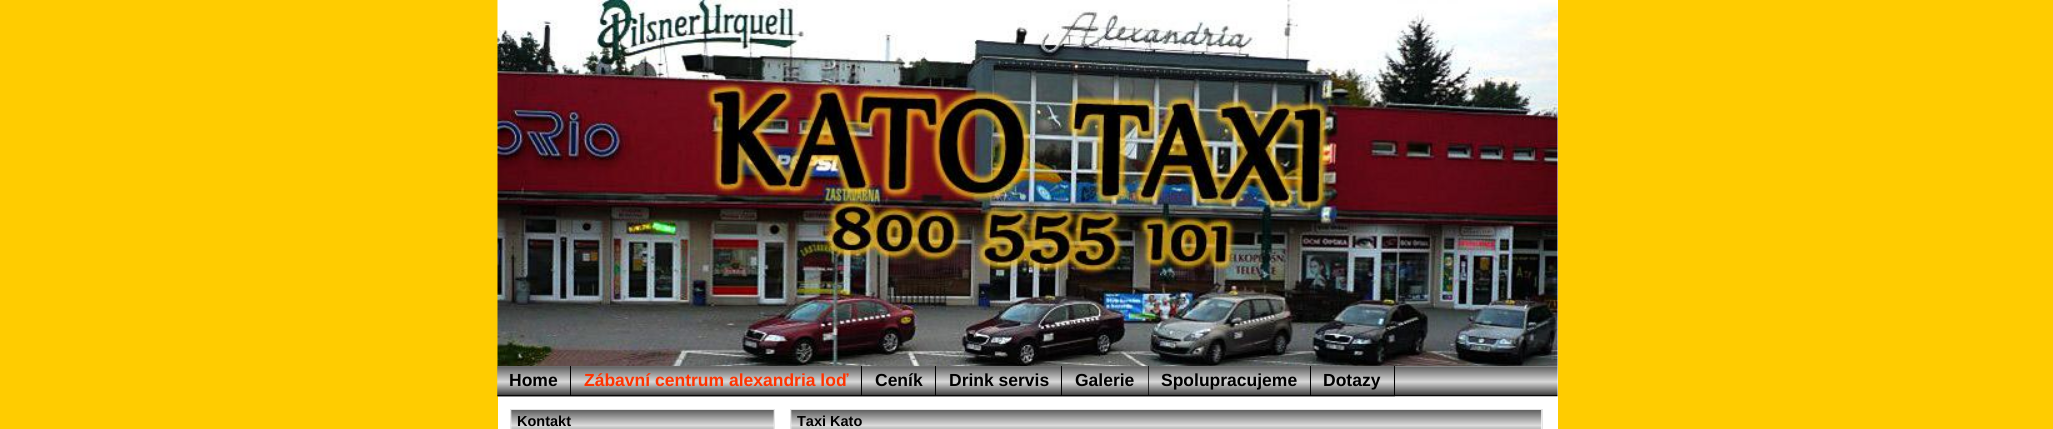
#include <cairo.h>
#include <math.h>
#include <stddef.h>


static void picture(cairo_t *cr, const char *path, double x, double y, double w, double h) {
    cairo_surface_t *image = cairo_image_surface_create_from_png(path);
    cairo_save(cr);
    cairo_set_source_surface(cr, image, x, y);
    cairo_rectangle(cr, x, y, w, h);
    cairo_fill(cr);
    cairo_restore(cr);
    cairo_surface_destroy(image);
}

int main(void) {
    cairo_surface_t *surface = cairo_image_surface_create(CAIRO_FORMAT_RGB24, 2053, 429);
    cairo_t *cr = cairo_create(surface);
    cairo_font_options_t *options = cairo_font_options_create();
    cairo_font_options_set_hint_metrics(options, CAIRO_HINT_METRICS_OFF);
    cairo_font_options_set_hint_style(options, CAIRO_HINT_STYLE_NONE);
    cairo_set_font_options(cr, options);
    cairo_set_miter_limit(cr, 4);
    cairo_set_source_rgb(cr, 1, 0.8, 0);
    cairo_paint(cr);
    cairo_set_source_rgb(cr, 1, 1, 1);
    cairo_rectangle(cr, 498, 0, 1060, 429);
    cairo_fill(cr);
    picture(cr, "img1.png", 497, 0, 1061, 367);
    picture(cr, "img2.png", 497, 366, 1061, 31);
    picture(cr, "img3.png", 497, 366, 75, 31);
    cairo_set_source_rgb(cr, 0, 0, 0);
    cairo_rectangle(cr, 570, 366, 1, 30);
    cairo_fill(cr);
    cairo_select_font_face(cr, "Liberation Sans", CAIRO_FONT_SLANT_NORMAL, CAIRO_FONT_WEIGHT_BOLD);
    cairo_set_font_size(cr, 17.5);
    cairo_move_to(cr, 509, 386);
    cairo_show_text(cr, "Home");
    picture(cr, "img4.png", 571, 366, 292, 31);
    cairo_rectangle(cr, 861, 366, 1, 30);
    cairo_fill(cr);
    cairo_set_source_rgb(cr, 1, 0.2, 0);
    cairo_move_to(cr, 584, 386);
    cairo_show_text(cr, "Zábavní centrum alexandria loď");
    picture(cr, "img5.png", 862, 366, 75, 31);
    cairo_set_source_rgb(cr, 0, 0, 0);
    cairo_rectangle(cr, 935, 366, 1, 30);
    cairo_fill(cr);
    cairo_move_to(cr, 875, 386);
    cairo_show_text(cr, "Ceník");
    picture(cr, "img6.png", 936, 366, 127, 31);
    cairo_rectangle(cr, 1061, 366, 1, 30);
    cairo_fill(cr);
    cairo_move_to(cr, 949, 386);
    cairo_show_text(cr, "Drink servis");
    picture(cr, "img7.png", 1062, 366, 87, 31);
    cairo_rectangle(cr, 1148, 366, 1, 30);
    cairo_fill(cr);
    cairo_move_to(cr, 1075, 386);
    cairo_show_text(cr, "Galerie");
    picture(cr, "img8.png", 1148, 366, 164, 31);
    cairo_rectangle(cr, 1310, 366, 1, 30);
    cairo_fill(cr);
    cairo_move_to(cr, 1161, 386);
    cairo_show_text(cr, "Spolupracujeme");
    picture(cr, "img9.png", 1311, 366, 84, 31);
    cairo_rectangle(cr, 1394, 366, 1, 30);
    cairo_fill(cr);
    cairo_move_to(cr, 1323, 386);
    cairo_show_text(cr, "Dotazy");
    cairo_rectangle(cr, 510.5, 409.5, 264, 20);
    cairo_set_source_rgb(cr, 0.894, 0.894, 0.894);
    cairo_set_line_width(cr, 1);
    cairo_stroke(cr);
    picture(cr, "img10.png", 511, 410, 263, 19);
    cairo_set_font_size(cr, 14.5);
    cairo_set_source_rgb(cr, 0, 0, 0);
    cairo_move_to(cr, 517, 426);
    cairo_show_text(cr, "Kontakt");
    cairo_rectangle(cr, 790.5, 409.5, 752, 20);
    cairo_set_source_rgb(cr, 0.894, 0.894, 0.894);
    cairo_stroke(cr);
    picture(cr, "img11.png", 791, 410, 751, 19);
    cairo_set_source_rgb(cr, 0, 0, 0);
    cairo_move_to(cr, 797, 426);
    cairo_show_text(cr, "Taxi Kato");
    cairo_surface_write_to_png(surface, "page.png");
    cairo_font_options_destroy(options);
    cairo_destroy(cr);
    cairo_surface_destroy(surface);
    return 0;
}
